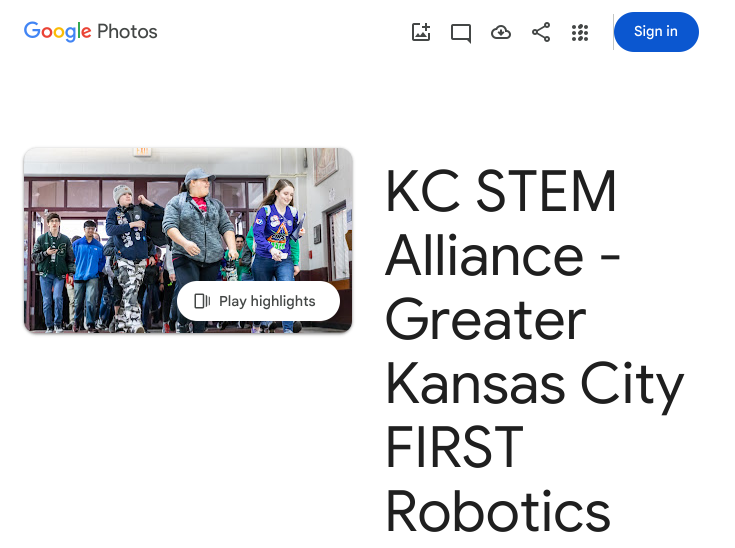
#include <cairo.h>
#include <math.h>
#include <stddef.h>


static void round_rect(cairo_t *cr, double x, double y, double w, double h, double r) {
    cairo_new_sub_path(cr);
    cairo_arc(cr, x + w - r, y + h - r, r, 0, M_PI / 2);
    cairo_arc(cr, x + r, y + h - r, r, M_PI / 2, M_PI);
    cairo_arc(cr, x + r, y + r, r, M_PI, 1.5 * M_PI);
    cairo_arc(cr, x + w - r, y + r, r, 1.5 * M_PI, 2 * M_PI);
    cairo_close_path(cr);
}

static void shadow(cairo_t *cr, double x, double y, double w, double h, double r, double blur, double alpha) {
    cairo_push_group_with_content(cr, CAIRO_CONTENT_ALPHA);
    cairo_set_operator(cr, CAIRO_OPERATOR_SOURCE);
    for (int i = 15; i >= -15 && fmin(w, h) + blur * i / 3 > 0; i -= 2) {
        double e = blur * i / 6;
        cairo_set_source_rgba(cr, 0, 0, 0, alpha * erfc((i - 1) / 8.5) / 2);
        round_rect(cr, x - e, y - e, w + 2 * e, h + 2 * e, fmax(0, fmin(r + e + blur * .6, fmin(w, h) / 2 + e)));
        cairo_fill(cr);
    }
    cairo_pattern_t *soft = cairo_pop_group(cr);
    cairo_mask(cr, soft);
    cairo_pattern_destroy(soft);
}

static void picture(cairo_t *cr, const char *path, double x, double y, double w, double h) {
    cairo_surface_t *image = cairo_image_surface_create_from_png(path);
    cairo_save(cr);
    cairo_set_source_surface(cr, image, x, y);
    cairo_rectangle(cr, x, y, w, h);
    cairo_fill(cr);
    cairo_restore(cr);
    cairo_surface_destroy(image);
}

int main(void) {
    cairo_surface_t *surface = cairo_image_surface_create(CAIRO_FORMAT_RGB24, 735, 548);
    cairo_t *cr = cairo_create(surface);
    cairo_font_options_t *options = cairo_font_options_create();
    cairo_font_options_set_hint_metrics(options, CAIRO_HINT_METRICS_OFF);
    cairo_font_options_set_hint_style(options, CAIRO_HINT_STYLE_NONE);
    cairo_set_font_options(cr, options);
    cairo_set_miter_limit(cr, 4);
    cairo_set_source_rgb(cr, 1, 1, 1);
    cairo_paint(cr);
    picture(cr, "img1.png", 24, 21, 68, 22);
    cairo_select_font_face(cr, "Product Sans", CAIRO_FONT_SLANT_NORMAL, CAIRO_FONT_WEIGHT_NORMAL);
    cairo_set_font_size(cr, 20);
    cairo_set_source_rgb(cr, 0.267, 0.278, 0.275);
    cairo_move_to(cr, 97, 38);
    cairo_show_text(cr, "Photos");
    picture(cr, "img2.png", 412, 23, 18, 18);
    picture(cr, "img3.png", 451, 24, 20, 20);
    picture(cr, "img4.png", 491, 25, 20, 14);
    picture(cr, "img5.png", 532, 22, 18, 20);
    picture(cr, "img6.png", 579, 24, 4, 16);
    cairo_set_source_rgb(cr, 0.769, 0.78, 0.773);
    cairo_rectangle(cr, 613, 14, 1, 36);
    cairo_fill(cr);
    cairo_set_source_rgb(cr, 0, 0, 0);
    shadow(cr, 23, 148, 330, 187, 13, 1.5, 0.15);
    shadow(cr, 24, 149, 328, 185, 12, 1, 0.3);
    picture(cr, "img7.png", 24, 148, 328, 185);
    cairo_set_source_rgb(cr, 1, 1, 1);
    round_rect(cr, 177, 281, 163, 40, 20);
    cairo_fill(cr);
    picture(cr, "img8.png", 194, 293, 16, 16);
    cairo_select_font_face(cr, "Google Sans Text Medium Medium", CAIRO_FONT_SLANT_NORMAL, CAIRO_FONT_WEIGHT_NORMAL);
    cairo_set_font_size(cr, 14);
    cairo_set_source_rgb(cr, 0.267, 0.278, 0.275);
    cairo_move_to(cr, 219, 306);
    cairo_show_text(cr, "Play highlights");
    cairo_select_font_face(cr, "Google Sans", CAIRO_FONT_SLANT_NORMAL, CAIRO_FONT_WEIGHT_NORMAL);
    cairo_set_font_size(cr, 57);
    cairo_set_source_rgb(cr, 0.122, 0.122, 0.122);
    cairo_move_to(cr, 384, 211);
    cairo_show_text(cr, "KC STEM");
    cairo_move_to(cr, 384, 275);
    cairo_show_text(cr, "Alliance -");
    cairo_move_to(cr, 384, 339);
    cairo_show_text(cr, "Greater");
    cairo_move_to(cr, 384, 403);
    cairo_show_text(cr, "Kansas City");
    cairo_move_to(cr, 384, 467);
    cairo_show_text(cr, "FIRST");
    cairo_move_to(cr, 384, 531);
    cairo_show_text(cr, "Robotics");
    picture(cr, "img9.png", 572, 25, 16, 16);
    cairo_set_source_rgb(cr, 0.043, 0.341, 0.816);
    round_rect(cr, 614, 12, 85, 40, 20);
    cairo_fill(cr);
    cairo_select_font_face(cr, "Google Sans Text Medium Medium", CAIRO_FONT_SLANT_NORMAL, CAIRO_FONT_WEIGHT_NORMAL);
    cairo_set_font_size(cr, 14);
    cairo_set_source_rgb(cr, 1, 1, 1);
    cairo_move_to(cr, 634, 36);
    cairo_show_text(cr, "Sign in");
    cairo_surface_write_to_png(surface, "page.png");
    cairo_font_options_destroy(options);
    cairo_destroy(cr);
    cairo_surface_destroy(surface);
    return 0;
}
